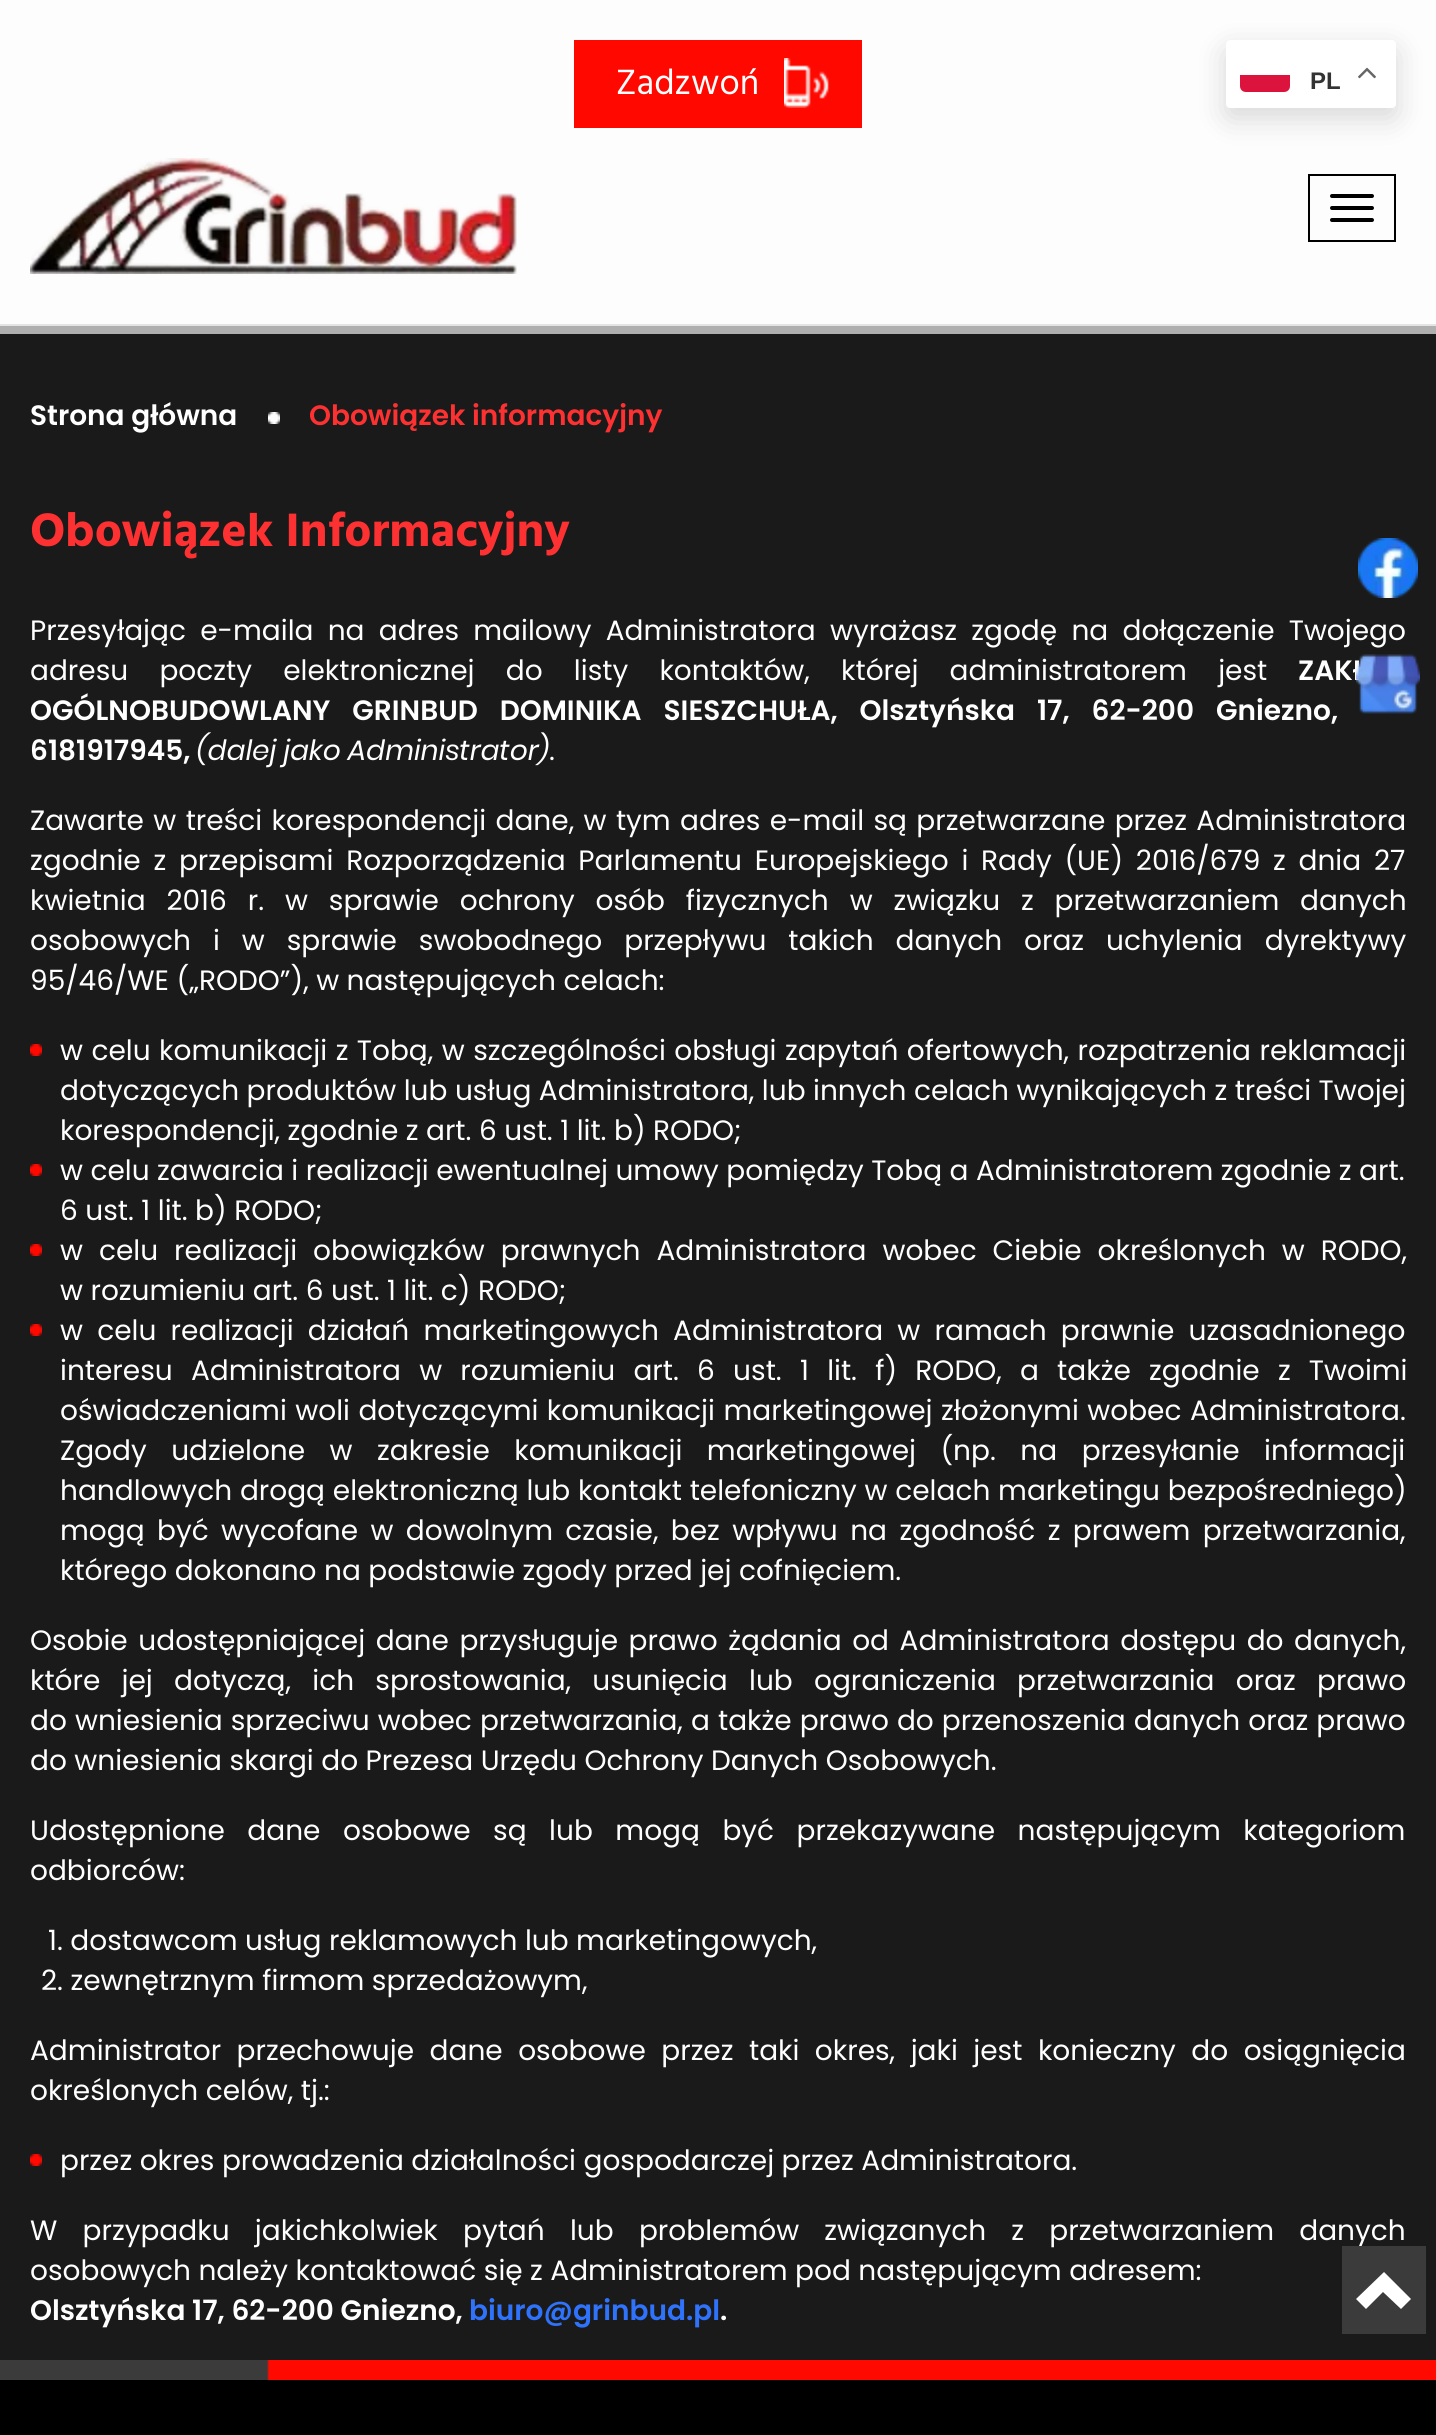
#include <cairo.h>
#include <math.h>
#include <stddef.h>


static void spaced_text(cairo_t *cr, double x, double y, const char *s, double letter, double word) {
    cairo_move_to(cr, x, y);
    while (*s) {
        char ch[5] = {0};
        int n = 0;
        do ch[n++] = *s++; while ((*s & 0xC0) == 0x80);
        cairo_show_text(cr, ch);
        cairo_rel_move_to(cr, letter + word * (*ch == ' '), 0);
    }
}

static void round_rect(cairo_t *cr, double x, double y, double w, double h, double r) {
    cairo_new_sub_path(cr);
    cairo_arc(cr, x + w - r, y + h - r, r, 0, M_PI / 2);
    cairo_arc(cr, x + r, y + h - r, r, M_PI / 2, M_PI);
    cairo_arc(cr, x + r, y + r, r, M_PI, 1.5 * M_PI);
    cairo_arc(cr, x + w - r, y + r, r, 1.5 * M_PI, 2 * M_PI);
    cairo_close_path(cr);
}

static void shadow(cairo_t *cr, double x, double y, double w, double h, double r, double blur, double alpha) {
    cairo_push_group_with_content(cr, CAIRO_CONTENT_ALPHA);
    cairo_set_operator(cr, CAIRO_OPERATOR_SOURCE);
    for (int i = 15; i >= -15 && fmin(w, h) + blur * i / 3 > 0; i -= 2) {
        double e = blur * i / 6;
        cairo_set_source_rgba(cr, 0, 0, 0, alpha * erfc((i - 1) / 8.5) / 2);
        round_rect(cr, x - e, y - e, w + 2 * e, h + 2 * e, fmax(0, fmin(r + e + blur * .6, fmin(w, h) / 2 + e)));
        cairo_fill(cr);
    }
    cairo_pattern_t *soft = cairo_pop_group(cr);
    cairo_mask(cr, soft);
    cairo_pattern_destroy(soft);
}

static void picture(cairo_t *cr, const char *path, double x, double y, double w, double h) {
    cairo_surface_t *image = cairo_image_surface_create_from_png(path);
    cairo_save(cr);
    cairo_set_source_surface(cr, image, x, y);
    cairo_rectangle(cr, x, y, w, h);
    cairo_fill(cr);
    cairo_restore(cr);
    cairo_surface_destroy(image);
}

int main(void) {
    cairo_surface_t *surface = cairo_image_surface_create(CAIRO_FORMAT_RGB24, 1436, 2435);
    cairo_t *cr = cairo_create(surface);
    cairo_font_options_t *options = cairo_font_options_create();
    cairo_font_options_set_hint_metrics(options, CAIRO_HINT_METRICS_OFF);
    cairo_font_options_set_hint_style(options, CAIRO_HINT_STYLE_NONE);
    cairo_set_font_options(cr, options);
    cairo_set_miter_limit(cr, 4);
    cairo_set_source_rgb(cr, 0.102, 0.102, 0.102);
    cairo_paint(cr);
    cairo_set_source_rgb(cr, 0.992, 0.992, 0.992);
    cairo_rectangle(cr, 0, 0, 1436, 324);
    cairo_fill(cr);
    cairo_set_source_rgb(cr, 0.894, 0.894, 0.894);
    cairo_rectangle(cr, 0, 324, 1436, 2);
    cairo_fill(cr);
    cairo_set_source_rgb(cr, 1, 0.035, 0);
    cairo_rectangle(cr, 574, 40, 288, 88);
    cairo_fill(cr);
    picture(cr, "img1.png", 784, 58, 45, 50);
    cairo_select_font_face(cr, "Hind", CAIRO_FONT_SLANT_NORMAL, CAIRO_FONT_WEIGHT_NORMAL);
    cairo_set_font_size(cr, 36);
    cairo_set_source_rgb(cr, 1, 1, 1);
    cairo_move_to(cr, 616, 94);
    cairo_show_text(cr, "Zadzwoń");
    picture(cr, "img2.png", 30, 158, 487, 116);
    cairo_rectangle(cr, 1309, 175, 86, 66);
    cairo_set_source_rgb(cr, 0, 0, 0);
    cairo_stroke(cr);
    round_rect(cr, 1330, 194, 44, 4, 2);
    cairo_fill(cr);
    round_rect(cr, 1330, 206, 44, 4, 2);
    cairo_fill(cr);
    round_rect(cr, 1330, 218, 44, 4, 2);
    cairo_fill(cr);
    cairo_set_source_rgb(cr, 0.686, 0.686, 0.686);
    cairo_rectangle(cr, 0, 326, 1436, 8);
    cairo_fill(cr);
    cairo_set_source_rgb(cr, 0, 0, 0);
    shadow(cr, 1226, 50, 170, 68, 4, 15, 0.15);
    cairo_set_source_rgb(cr, 1, 1, 1);
    round_rect(cr, 1226, 40, 170, 68, 4);
    cairo_fill(cr);
    cairo_set_source_rgb(cr, 0.863, 0.078, 0.235);
    cairo_new_path(cr);
    cairo_move_to(cr, 1240, 75);
    cairo_line_to(cr, 1290, 75);
    cairo_line_to(cr, 1290, 86);
    cairo_curve_to(cr, 1290, 89.5, 1287.5, 92, 1284, 92);
    cairo_line_to(cr, 1246, 92);
    cairo_curve_to(cr, 1242.5, 92, 1240, 89.5, 1240, 86);
    cairo_close_path(cr);
    cairo_fill(cr);
    cairo_select_font_face(cr, "Liberation Sans", CAIRO_FONT_SLANT_NORMAL, CAIRO_FONT_WEIGHT_BOLD);
    cairo_set_font_size(cr, 24);
    cairo_set_source_rgb(cr, 0.2, 0.2, 0.2);
    cairo_move_to(cr, 1310, 89);
    cairo_show_text(cr, "PL");
    picture(cr, "img3.png", 1358, 67, 18, 12);
    cairo_select_font_face(cr, "Poppins SemiBold", CAIRO_FONT_SLANT_NORMAL, CAIRO_FONT_WEIGHT_NORMAL);
    cairo_set_font_size(cr, 28);
    cairo_set_source_rgb(cr, 1, 1, 1);
    cairo_move_to(cr, 30, 425);
    cairo_show_text(cr, "Strona główna");
    picture(cr, "img4.png", 268, 412, 12, 12);
    cairo_set_source_rgb(cr, 0.992, 0.192, 0.192);
    cairo_move_to(cr, 309, 425);
    cairo_show_text(cr, "Obowiązek informacyjny");
    cairo_select_font_face(cr, "Hind", CAIRO_FONT_SLANT_NORMAL, CAIRO_FONT_WEIGHT_BOLD);
    cairo_set_font_size(cr, 48);
    cairo_move_to(cr, 30, 546);
    cairo_show_text(cr, "Obowiązek Informacyjny");
    cairo_select_font_face(cr, "Poppins", CAIRO_FONT_SLANT_NORMAL, CAIRO_FONT_WEIGHT_NORMAL);
    cairo_set_font_size(cr, 28);
    cairo_set_source_rgb(cr, 1, 1, 1);
    spaced_text(cr, 30, 640, "Przesyłając e-maila na adres mailowy Administratora wyrażasz zgodę na dołączenie Twojego", 0, 6.75);
    spaced_text(cr, 30, 680, "adresu poczty elektronicznej do listy kontaktów, której administratorem jest", 0, 23.75);
    cairo_select_font_face(cr, "Poppins SemiBold", CAIRO_FONT_SLANT_NORMAL, CAIRO_FONT_WEIGHT_NORMAL);
    cairo_move_to(cr, 1298, 680);
    cairo_show_text(cr, "ZAKŁ");
    spaced_text(cr, 30, 720, "OGÓLNOBUDOWLANY GRINBUD DOMINIKA SIESZCHUŁA, Olsztyńska 17, 62-200 Gniezno,", 0, 15.25);
    cairo_move_to(cr, 30, 760);
    cairo_show_text(cr, "6181917945,");
    cairo_select_font_face(cr, "poppins", CAIRO_FONT_SLANT_ITALIC, CAIRO_FONT_WEIGHT_NORMAL);
    cairo_move_to(cr, 197, 760);
    cairo_show_text(cr, "(dalej jako Administrator)");
    cairo_select_font_face(cr, "Poppins", CAIRO_FONT_SLANT_NORMAL, CAIRO_FONT_WEIGHT_NORMAL);
    cairo_move_to(cr, 549, 760);
    cairo_show_text(cr, ".");
    spaced_text(cr, 30, 830, "Zawarte w treści korespondencji dane, w tym adres e-mail są przetwarzane przez Administratora", 0, 1.9);
    spaced_text(cr, 30, 870, "zgodnie z przepisami Rozporządzenia Parlamentu Europejskiego i Rady (UE) 2016/679 z dnia 27", 0, 5.25);
    spaced_text(cr, 30, 910, "kwietnia 2016 r. w sprawie ochrony osób fizycznych w związku z przetwarzaniem danych", 0, 13.4);
    spaced_text(cr, 30, 950, "osobowych i w sprawie swobodnego przepływu takich danych oraz uchylenia dyrektywy", 0, 14.5);
    cairo_move_to(cr, 30, 990);
    cairo_show_text(cr, "95/46/WE („RODO”), w następujących celach:");
    picture(cr, "img5.png", 30, 1044, 12, 12);
    spaced_text(cr, 60, 1060, "w celu komunikacji z Tobą, w szczególności obsługi zapytań ofertowych, rozpatrzenia reklamacji", 0, 1);
    cairo_move_to(cr, 60, 1100);
    cairo_show_text(cr, "dotyczących produktów lub usług Administratora, lub innych celach wynikających z treści Twojej");
    cairo_move_to(cr, 60, 1140);
    cairo_show_text(cr, "korespondencji, zgodnie z art. 6 ust. 1 lit. b) RODO;");
    picture(cr, "img5.png", 30, 1164, 12, 12);
    cairo_move_to(cr, 60, 1180);
    cairo_show_text(cr, "w celu zawarcia i realizacji ewentualnej umowy pomiędzy Tobą a Administratorem zgodnie z art.");
    cairo_move_to(cr, 60, 1220);
    cairo_show_text(cr, "6 ust. 1 lit. b) RODO;");
    picture(cr, "img5.png", 30, 1244, 12, 12);
    spaced_text(cr, 60, 1260, "w celu realizacji obowiązków prawnych Administratora wobec Ciebie określonych w RODO,", 0, 8.5);
    cairo_move_to(cr, 60, 1300);
    cairo_show_text(cr, "w rozumieniu art. 6 ust. 1 lit. c) RODO;");
    picture(cr, "img5.png", 30, 1324, 12, 12);
    spaced_text(cr, 60, 1340, "w celu realizacji działań marketingowych Administratora w ramach prawnie uzasadnionego", 0, 6.75);
    spaced_text(cr, 60, 1380, "interesu Administratora w rozumieniu art. 6 ust. 1 lit. f) RODO, a także zgodnie z Twoimi", 0, 10.75);
    spaced_text(cr, 60, 1420, "oświadczeniami woli dotyczącymi komunikacji marketingowej złożonymi wobec Administratora.", 0, 1);
    spaced_text(cr, 60, 1460, "Zgody udzielone w zakresie komunikacji marketingowej (np. na przesyłanie informacji", 0, 17);
    spaced_text(cr, 60, 1500, "handlowych drogą elektroniczną lub kontakt telefoniczny w celach marketingu bezpośredniego)", 0, 0.25);
    spaced_text(cr, 60, 1540, "mogą być wycofane w dowolnym czasie, bez wpływu na zgodność z prawem przetwarzania,", 0, 4.9);
    cairo_move_to(cr, 60, 1580);
    cairo_show_text(cr, "którego dokonano na podstawie zgody przed jej cofnięciem.");
    spaced_text(cr, 30, 1650, "Osobie udostępniającej dane przysługuje prawo żądania od Administratora dostępu do danych,", 0, 3.1);
    spaced_text(cr, 30, 1690, "które jej dotyczą, ich sprostowania, usunięcia lub ograniczenia przetwarzania oraz prawo", 0, 13.75);
    spaced_text(cr, 30, 1730, "do wniesienia sprzeciwu wobec przetwarzania, a także prawo do przenoszenia danych oraz prawo", 0, 0.6);
    cairo_move_to(cr, 30, 1770);
    cairo_show_text(cr, "do wniesienia skargi do Prezesa Urzędu Ochrony Danych Osobowych.");
    spaced_text(cr, 30, 1840, "Udostępnione dane osobowe są lub mogą być przekazywane następującym kategoriom", 0, 15);
    cairo_move_to(cr, 30, 1880);
    cairo_show_text(cr, "odbiorców:");
    cairo_move_to(cr, 48, 1950);
    cairo_show_text(cr, "1. dostawcom usług reklamowych lub marketingowych,");
    cairo_move_to(cr, 41, 1990);
    cairo_show_text(cr, "2. zewnętrznym firmom sprzedażowym,");
    spaced_text(cr, 30, 2060, "Administrator przechowuje dane osobowe przez taki okres, jaki jest konieczny do osiągnięcia", 0, 8);
    cairo_move_to(cr, 30, 2100);
    cairo_show_text(cr, "określonych celów, tj.:");
    picture(cr, "img5.png", 30, 2154, 12, 12);
    cairo_move_to(cr, 60, 2170);
    cairo_show_text(cr, "przez okres prowadzenia działalności gospodarczej przez Administratora.");
    spaced_text(cr, 30, 2240, "W przypadku jakichkolwiek pytań lub problemów związanych z przetwarzaniem danych", 0, 17.75);
    cairo_move_to(cr, 30, 2280);
    cairo_show_text(cr, "osobowych należy kontaktować się z Administratorem pod następującym adresem:");
    cairo_select_font_face(cr, "Poppins SemiBold", CAIRO_FONT_SLANT_NORMAL, CAIRO_FONT_WEIGHT_NORMAL);
    cairo_move_to(cr, 30, 2320);
    cairo_show_text(cr, "Olsztyńska 17, 62-200 Gniezno,");
    cairo_set_source_rgb(cr, 0.184, 0.451, 0.988);
    cairo_move_to(cr, 469, 2320);
    cairo_show_text(cr, "biuro@grinbud.pl");
    cairo_set_source_rgb(cr, 1, 1, 1);
    cairo_move_to(cr, 720, 2320);
    cairo_show_text(cr, ".");
    picture(cr, "img6.png", 1358, 538, 60, 60);
    picture(cr, "img7.png", 1356, 654, 64, 60);
    cairo_set_source_rgb(cr, 0.231, 0.231, 0.231);
    cairo_rectangle(cr, 1342, 2246, 84, 88);
    cairo_fill(cr);
    cairo_set_source_rgb(cr, 1, 1, 1);
    cairo_new_path(cr);
    cairo_move_to(cr, 1411, 2299);
    cairo_line_to(cr, 1401, 2309);
    cairo_line_to(cr, 1383, 2292);
    cairo_line_to(cr, 1366, 2309);
    cairo_line_to(cr, 1356, 2299);
    cairo_line_to(cr, 1384, 2272);
    cairo_close_path(cr);
    cairo_fill(cr);
    cairo_set_source_rgb(cr, 0, 0, 0);
    cairo_rectangle(cr, 0, 2380, 1436, 55);
    cairo_fill(cr);
    picture(cr, "img8.png", 0, 2360, 1436, 20);
    cairo_surface_write_to_png(surface, "page.png");
    cairo_font_options_destroy(options);
    cairo_destroy(cr);
    cairo_surface_destroy(surface);
    return 0;
}
